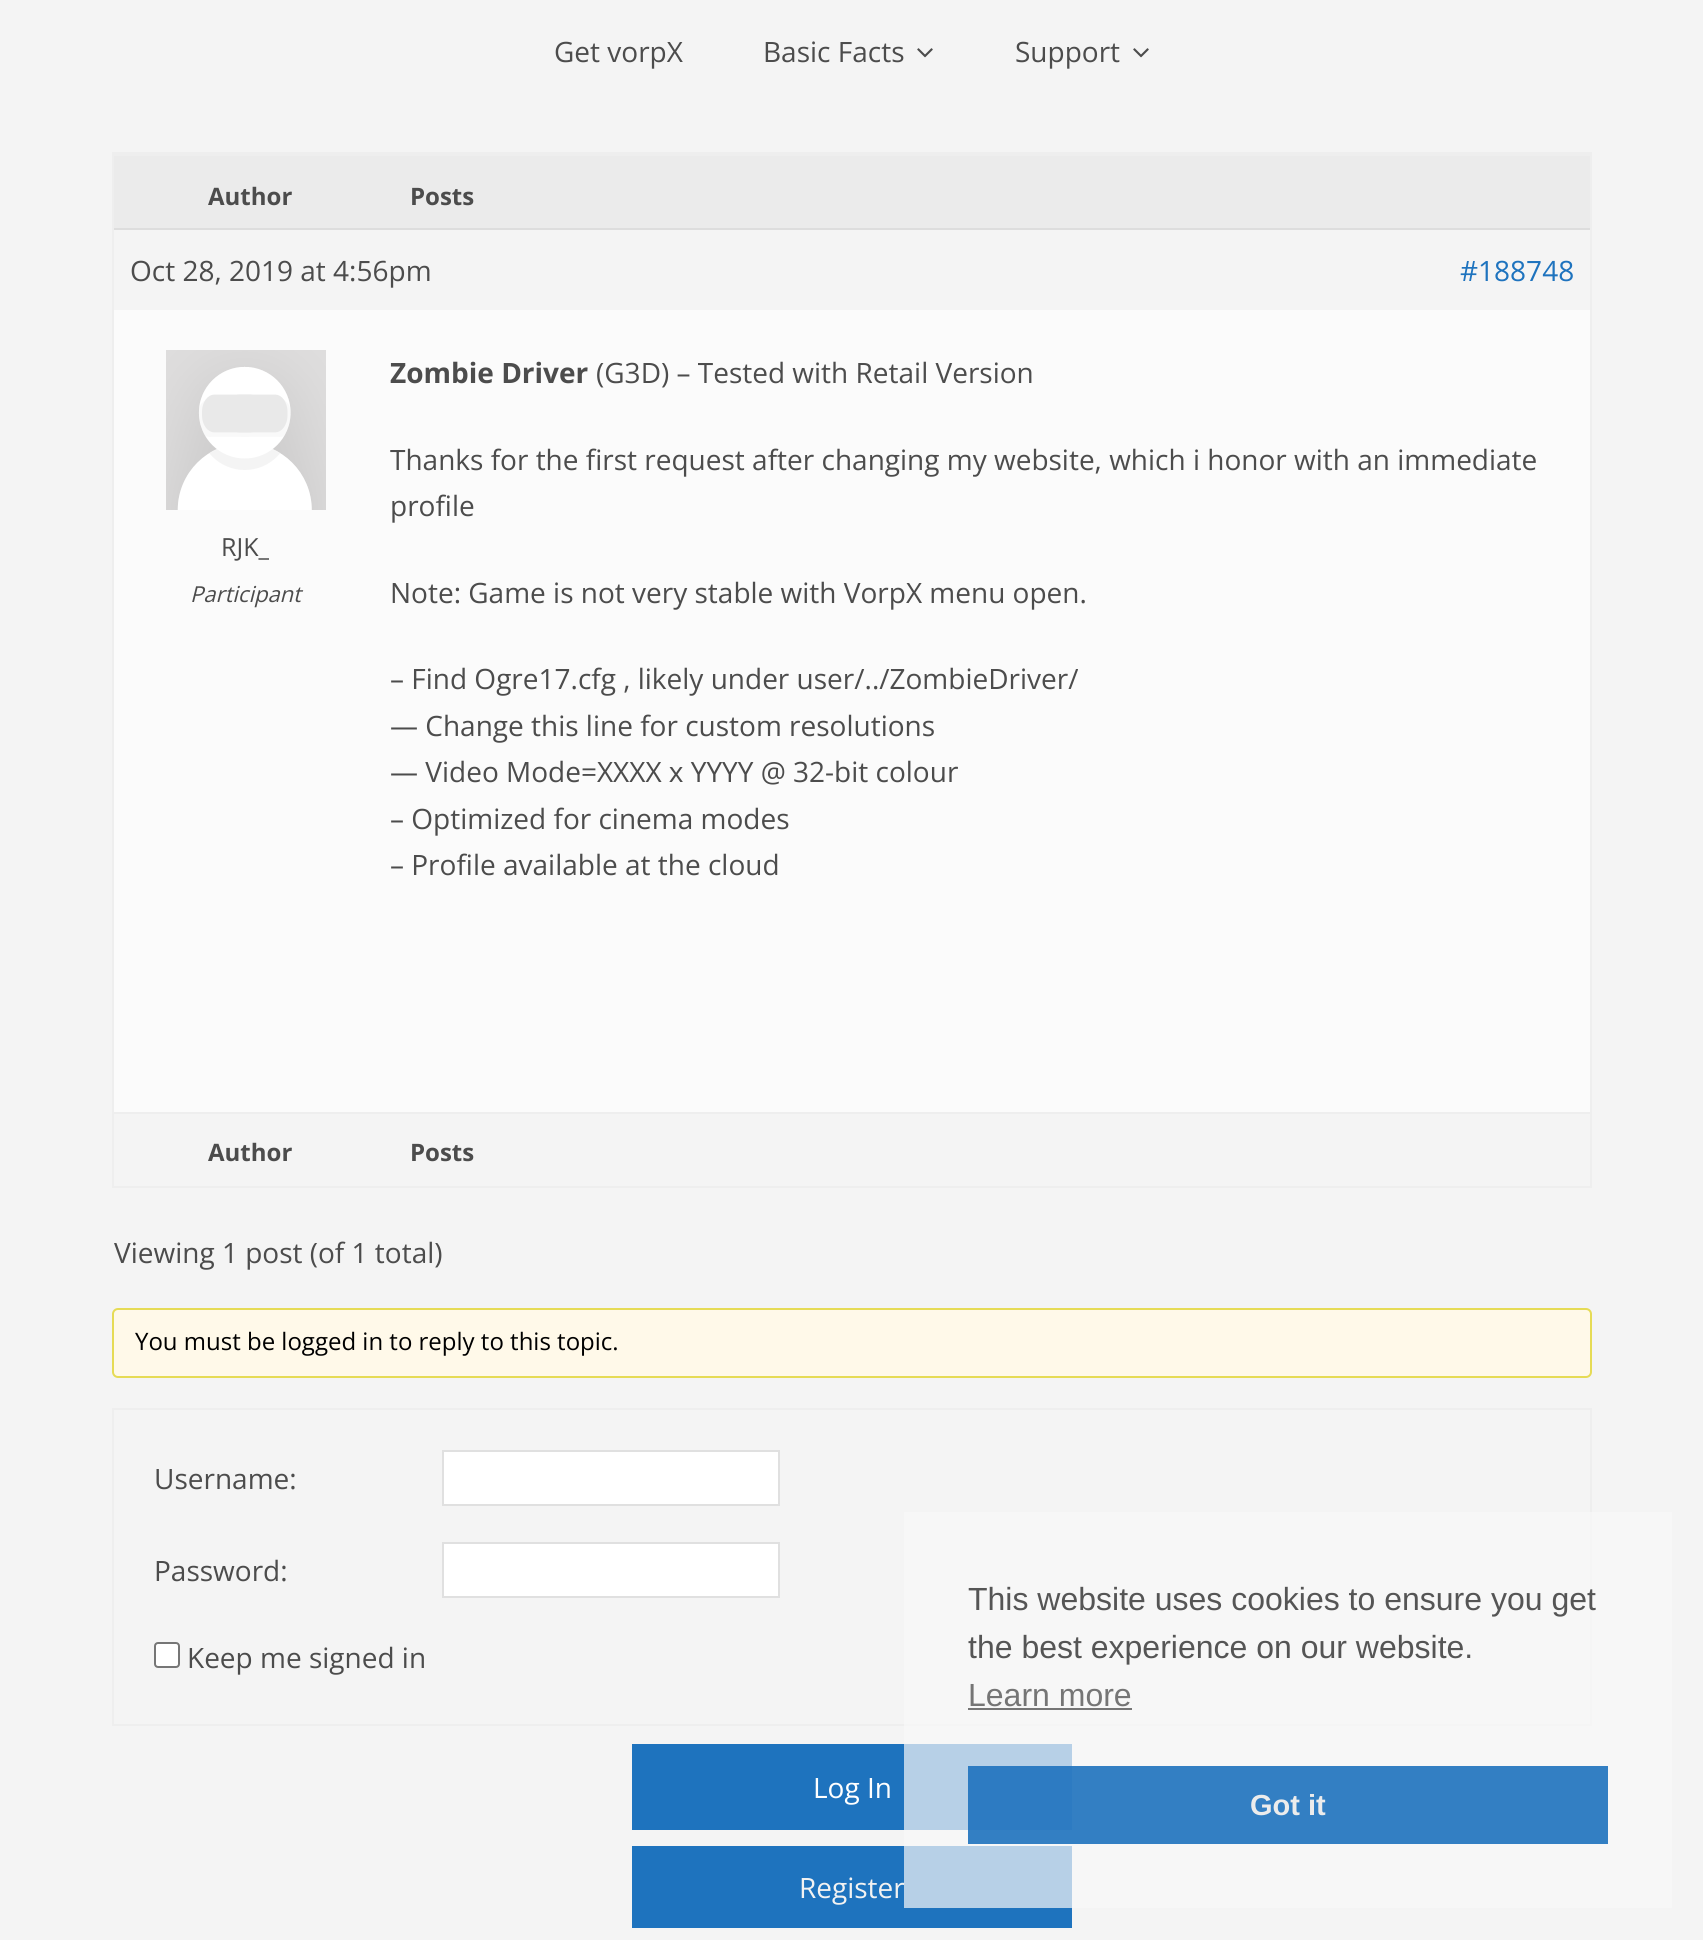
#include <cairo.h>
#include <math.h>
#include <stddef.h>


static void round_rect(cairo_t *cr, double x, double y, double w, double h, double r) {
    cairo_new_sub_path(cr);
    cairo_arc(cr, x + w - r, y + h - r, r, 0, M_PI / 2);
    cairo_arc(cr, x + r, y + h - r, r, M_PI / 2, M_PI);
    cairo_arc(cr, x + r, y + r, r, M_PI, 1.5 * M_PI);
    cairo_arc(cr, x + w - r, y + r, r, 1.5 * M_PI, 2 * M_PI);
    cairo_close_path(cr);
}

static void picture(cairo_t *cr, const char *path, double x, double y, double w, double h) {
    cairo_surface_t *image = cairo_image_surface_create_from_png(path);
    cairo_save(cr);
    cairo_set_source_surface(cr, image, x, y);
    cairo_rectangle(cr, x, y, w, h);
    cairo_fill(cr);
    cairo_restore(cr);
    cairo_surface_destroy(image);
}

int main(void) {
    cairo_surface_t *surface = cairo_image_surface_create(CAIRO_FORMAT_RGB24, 1703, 1940);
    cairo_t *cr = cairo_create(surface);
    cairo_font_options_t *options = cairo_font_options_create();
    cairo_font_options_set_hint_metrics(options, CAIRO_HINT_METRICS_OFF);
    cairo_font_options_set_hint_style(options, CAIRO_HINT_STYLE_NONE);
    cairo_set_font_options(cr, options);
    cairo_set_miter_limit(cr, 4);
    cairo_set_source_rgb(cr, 0.957, 0.957, 0.957);
    cairo_paint(cr);
    cairo_select_font_face(cr, "Open Sans", CAIRO_FONT_SLANT_NORMAL, CAIRO_FONT_WEIGHT_NORMAL);
    cairo_set_font_size(cr, 28);
    cairo_set_source_rgb(cr, 0.298, 0.298, 0.298);
    cairo_move_to(cr, 554, 62);
    cairo_show_text(cr, "Get vorpX");
    cairo_move_to(cr, 763, 62);
    cairo_show_text(cr, "Basic Facts");
    picture(cr, "img1.png", 917, 48, 16, 10);
    cairo_move_to(cr, 1015, 62);
    cairo_show_text(cr, "Support");
    picture(cr, "img1.png", 1133, 48, 16, 10);
    cairo_rectangle(cr, 113, 153, 1478, 1034);
    cairo_set_source_rgb(cr, 0.933, 0.933, 0.933);
    cairo_stroke(cr);
    cairo_set_source_rgb(cr, 0.918, 0.918, 0.918);
    cairo_rectangle(cr, 114, 156, 1476, 72);
    cairo_fill(cr);
    cairo_set_source_rgb(cr, 0.933, 0.933, 0.933);
    cairo_rectangle(cr, 114, 154, 1476, 2);
    cairo_fill(cr);
    cairo_select_font_face(cr, "Open Sans", CAIRO_FONT_SLANT_NORMAL, CAIRO_FONT_WEIGHT_BOLD);
    cairo_set_font_size(cr, 24);
    cairo_set_source_rgb(cr, 0.298, 0.298, 0.298);
    cairo_move_to(cr, 208, 205);
    cairo_show_text(cr, "Author");
    cairo_move_to(cr, 410, 205);
    cairo_show_text(cr, "Posts");
    cairo_set_source_rgb(cr, 0.867, 0.867, 0.867);
    cairo_rectangle(cr, 114, 228, 1476, 2);
    cairo_fill(cr);
    cairo_select_font_face(cr, "Open Sans", CAIRO_FONT_SLANT_NORMAL, CAIRO_FONT_WEIGHT_NORMAL);
    cairo_set_font_size(cr, 28);
    cairo_set_source_rgb(cr, 0.298, 0.298, 0.298);
    cairo_move_to(cr, 130, 281);
    cairo_show_text(cr, "Oct 28, 2019 at 4:56pm");
    cairo_set_source_rgb(cr, 0.118, 0.451, 0.745);
    cairo_move_to(cr, 1460, 281);
    cairo_show_text(cr, "#188748");
    cairo_set_source_rgb(cr, 0.984, 0.984, 0.984);
    cairo_rectangle(cr, 114, 310, 1476, 802);
    cairo_fill(cr);
    picture(cr, "img2.png", 166, 350, 160, 160);
    cairo_set_font_size(cr, 25);
    cairo_set_source_rgb(cr, 0.298, 0.298, 0.298);
    cairo_move_to(cr, 221, 556);
    cairo_show_text(cr, "RJK_");
    cairo_select_font_face(cr, "Open Sans", CAIRO_FONT_SLANT_ITALIC, CAIRO_FONT_WEIGHT_NORMAL);
    cairo_set_font_size(cr, 22);
    cairo_move_to(cr, 190, 602);
    cairo_show_text(cr, "Participant");
    cairo_select_font_face(cr, "Open Sans", CAIRO_FONT_SLANT_NORMAL, CAIRO_FONT_WEIGHT_BOLD);
    cairo_set_font_size(cr, 28);
    cairo_move_to(cr, 390, 383);
    cairo_show_text(cr, "Zombie Driver");
    cairo_select_font_face(cr, "Open Sans", CAIRO_FONT_SLANT_NORMAL, CAIRO_FONT_WEIGHT_NORMAL);
    cairo_move_to(cr, 596, 383);
    cairo_show_text(cr, "(G3D) – Tested with Retail Version");
    cairo_move_to(cr, 390, 470);
    cairo_show_text(cr, "Thanks for the first request after changing my website, which i honor with an immediate");
    cairo_move_to(cr, 390, 516);
    cairo_show_text(cr, "profile");
    cairo_move_to(cr, 390, 603);
    cairo_show_text(cr, "Note: Game is not very stable with VorpX menu open.");
    cairo_move_to(cr, 390, 689);
    cairo_show_text(cr, "– Find Ogre17.cfg , likely under user/../ZombieDriver/");
    cairo_move_to(cr, 390, 736);
    cairo_show_text(cr, "— Change this line for custom resolutions");
    cairo_move_to(cr, 390, 782);
    cairo_show_text(cr, "— Video Mode=XXXX x YYYY @ 32-bit colour");
    cairo_move_to(cr, 390, 829);
    cairo_show_text(cr, "– Optimized for cinema modes");
    cairo_move_to(cr, 390, 875);
    cairo_show_text(cr, "– Profile available at the cloud");
    cairo_set_source_rgb(cr, 0.933, 0.933, 0.933);
    cairo_rectangle(cr, 114, 1112, 1476, 2);
    cairo_fill(cr);
    cairo_select_font_face(cr, "Open Sans", CAIRO_FONT_SLANT_NORMAL, CAIRO_FONT_WEIGHT_BOLD);
    cairo_set_font_size(cr, 24);
    cairo_set_source_rgb(cr, 0.298, 0.298, 0.298);
    cairo_move_to(cr, 208, 1161);
    cairo_show_text(cr, "Author");
    cairo_move_to(cr, 410, 1161);
    cairo_show_text(cr, "Posts");
    cairo_select_font_face(cr, "Open Sans", CAIRO_FONT_SLANT_NORMAL, CAIRO_FONT_WEIGHT_NORMAL);
    cairo_set_font_size(cr, 28);
    cairo_move_to(cr, 114, 1263);
    cairo_show_text(cr, "Viewing 1 post (of 1 total)");
    cairo_set_source_rgb(cr, 1, 0.976, 0.914);
    round_rect(cr, 113, 1309, 1478, 68, 5);
    cairo_fill_preserve(cr);
    cairo_set_source_rgb(cr, 0.902, 0.859, 0.333);
    cairo_stroke(cr);
    cairo_set_font_size(cr, 24);
    cairo_set_source_rgb(cr, 0, 0, 0);
    cairo_move_to(cr, 135, 1350);
    cairo_show_text(cr, "You must be logged in to reply to this topic.");
    cairo_rectangle(cr, 113, 1409, 1478, 316);
    cairo_set_source_rgb(cr, 0.933, 0.933, 0.933);
    cairo_stroke(cr);
    cairo_set_font_size(cr, 28);
    cairo_set_source_rgb(cr, 0.298, 0.298, 0.298);
    cairo_move_to(cr, 154, 1489);
    cairo_show_text(cr, "Username:");
    cairo_set_source_rgb(cr, 1, 1, 1);
    cairo_rectangle(cr, 443, 1451, 336, 54);
    cairo_fill_preserve(cr);
    cairo_set_source_rgb(cr, 0.878, 0.878, 0.878);
    cairo_stroke(cr);
    cairo_set_source_rgb(cr, 0.298, 0.298, 0.298);
    cairo_move_to(cr, 154, 1581);
    cairo_show_text(cr, "Password:");
    cairo_set_source_rgb(cr, 1, 1, 1);
    cairo_rectangle(cr, 443, 1543, 336, 54);
    cairo_fill_preserve(cr);
    cairo_set_source_rgb(cr, 0.878, 0.878, 0.878);
    cairo_stroke(cr);
    cairo_set_source_rgb(cr, 1, 1, 1);
    round_rect(cr, 155, 1643, 24, 24, 3);
    cairo_fill_preserve(cr);
    cairo_set_source_rgb(cr, 0.463, 0.463, 0.463);
    cairo_stroke(cr);
    cairo_set_source_rgb(cr, 0.298, 0.298, 0.298);
    cairo_move_to(cr, 187, 1668);
    cairo_show_text(cr, "Keep me signed in");
    cairo_set_source_rgb(cr, 0.118, 0.451, 0.745);
    cairo_rectangle(cr, 632, 1744, 440, 86);
    cairo_fill(cr);
    cairo_set_source_rgb(cr, 1, 1, 1);
    cairo_move_to(cr, 813, 1798);
    cairo_show_text(cr, "Log In");
    cairo_set_source_rgb(cr, 0.118, 0.451, 0.745);
    cairo_rectangle(cr, 632, 1846, 440, 82);
    cairo_fill(cr);
    cairo_set_source_rgb(cr, 0.949, 0.949, 0.949);
    cairo_move_to(cr, 799, 1898);
    cairo_show_text(cr, "Register");
    cairo_set_source_rgba(cr, 0.973, 0.973, 0.973, 0.7);
    cairo_rectangle(cr, 904, 1512, 768, 396);
    cairo_fill(cr);
    cairo_select_font_face(cr, "Liberation Sans", CAIRO_FONT_SLANT_NORMAL, CAIRO_FONT_WEIGHT_NORMAL);
    cairo_set_font_size(cr, 32);
    cairo_set_source_rgb(cr, 0.333, 0.333, 0.333);
    cairo_move_to(cr, 968, 1610);
    cairo_show_text(cr, "This website uses cookies to ensure you get");
    cairo_move_to(cr, 968, 1658);
    cairo_show_text(cr, "the best experience on our website.");
    cairo_set_source_rgb(cr, 0.459, 0.459, 0.459);
    cairo_move_to(cr, 968, 1706);
    cairo_show_text(cr, "Learn more");
    cairo_rectangle(cr, 968, 1708, 164, 2);
    cairo_fill(cr);
    cairo_set_source_rgba(cr, 0.118, 0.451, 0.745, 0.9);
    cairo_rectangle(cr, 968, 1766, 640, 78);
    cairo_fill(cr);
    cairo_select_font_face(cr, "Liberation Sans", CAIRO_FONT_SLANT_NORMAL, CAIRO_FONT_WEIGHT_BOLD);
    cairo_set_font_size(cr, 29);
    cairo_set_source_rgb(cr, 0.922, 0.922, 0.922);
    cairo_move_to(cr, 1250, 1815);
    cairo_show_text(cr, "Got it");
    cairo_surface_write_to_png(surface, "page.png");
    cairo_font_options_destroy(options);
    cairo_destroy(cr);
    cairo_surface_destroy(surface);
    return 0;
}
